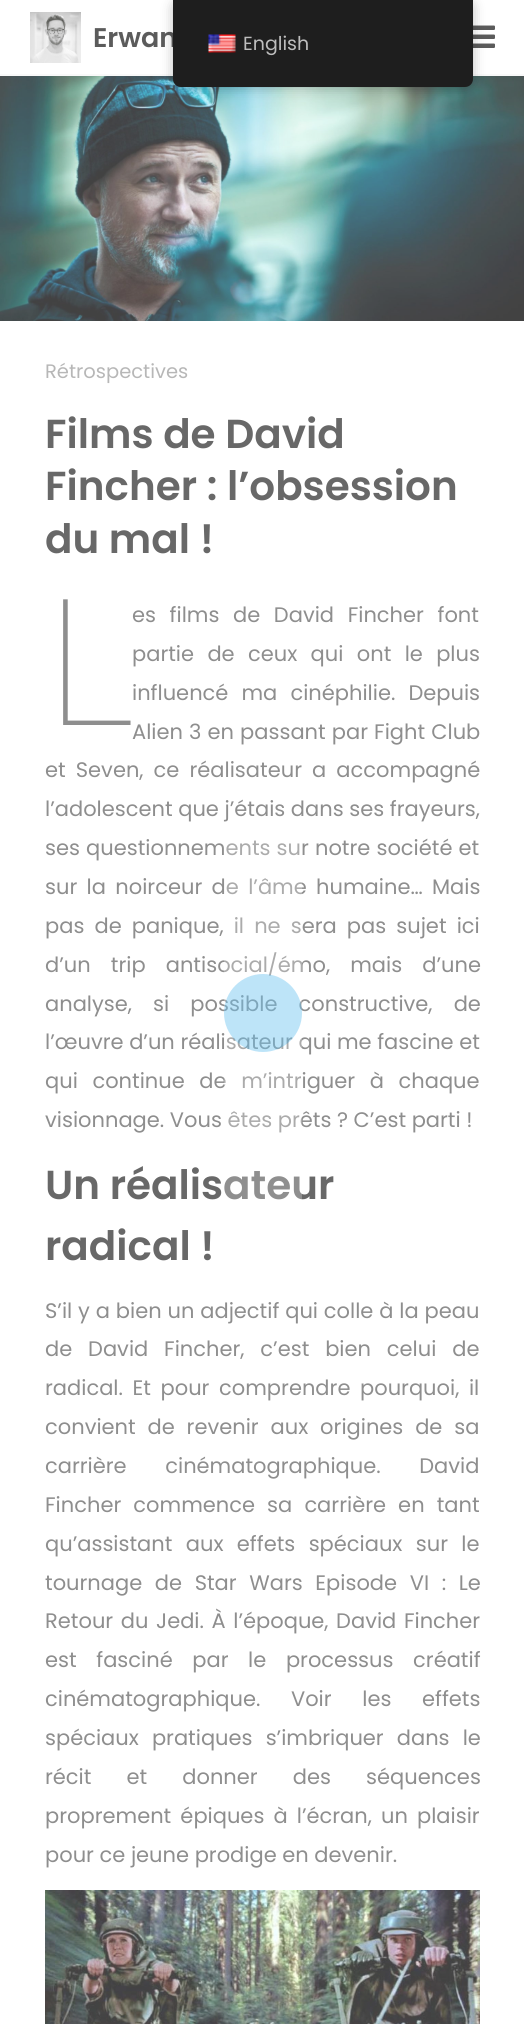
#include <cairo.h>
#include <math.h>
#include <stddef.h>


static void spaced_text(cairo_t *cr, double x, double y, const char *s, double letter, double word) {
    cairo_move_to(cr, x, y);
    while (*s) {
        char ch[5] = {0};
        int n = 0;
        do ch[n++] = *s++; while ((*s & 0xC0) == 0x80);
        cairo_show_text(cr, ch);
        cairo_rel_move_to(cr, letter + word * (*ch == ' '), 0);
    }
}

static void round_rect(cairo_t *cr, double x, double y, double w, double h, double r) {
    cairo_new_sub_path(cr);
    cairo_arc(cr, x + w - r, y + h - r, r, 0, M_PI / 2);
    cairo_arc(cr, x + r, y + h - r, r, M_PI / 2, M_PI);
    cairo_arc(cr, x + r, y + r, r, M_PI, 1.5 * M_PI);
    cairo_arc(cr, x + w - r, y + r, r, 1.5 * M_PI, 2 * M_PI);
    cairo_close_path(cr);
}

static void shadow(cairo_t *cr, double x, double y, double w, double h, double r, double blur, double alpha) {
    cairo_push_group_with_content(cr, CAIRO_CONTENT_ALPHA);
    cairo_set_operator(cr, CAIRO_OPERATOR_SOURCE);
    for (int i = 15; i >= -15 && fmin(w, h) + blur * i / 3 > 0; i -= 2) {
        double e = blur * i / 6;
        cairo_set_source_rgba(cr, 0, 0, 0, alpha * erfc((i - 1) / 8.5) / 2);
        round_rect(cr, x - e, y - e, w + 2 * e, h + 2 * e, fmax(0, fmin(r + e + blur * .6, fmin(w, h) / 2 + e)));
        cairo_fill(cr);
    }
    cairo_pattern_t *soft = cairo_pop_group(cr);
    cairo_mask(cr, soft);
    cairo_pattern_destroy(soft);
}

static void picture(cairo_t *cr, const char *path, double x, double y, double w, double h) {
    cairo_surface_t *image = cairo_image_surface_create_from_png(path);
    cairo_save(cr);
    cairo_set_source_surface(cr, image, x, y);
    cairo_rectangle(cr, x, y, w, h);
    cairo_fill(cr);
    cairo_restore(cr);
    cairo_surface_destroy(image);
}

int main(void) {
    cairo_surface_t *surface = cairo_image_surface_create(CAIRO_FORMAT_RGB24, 524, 2024);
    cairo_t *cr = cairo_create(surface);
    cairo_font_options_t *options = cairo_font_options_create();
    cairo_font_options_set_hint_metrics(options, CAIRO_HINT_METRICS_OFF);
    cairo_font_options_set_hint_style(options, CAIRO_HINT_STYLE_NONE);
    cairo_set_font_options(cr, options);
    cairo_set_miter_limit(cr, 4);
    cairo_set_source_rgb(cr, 1, 1, 1);
    cairo_paint(cr);
    cairo_set_source_rgb(cr, 0.973, 0.973, 0.973);
    cairo_rectangle(cr, 0, 74, 524, 2);
    cairo_fill(cr);
    picture(cr, "img1.png", 30, 12, 51, 51);
    cairo_select_font_face(cr, "Poppins SemiBold", CAIRO_FONT_SLANT_NORMAL, CAIRO_FONT_WEIGHT_NORMAL);
    cairo_set_font_size(cr, 27);
    cairo_set_source_rgb(cr, 0.357, 0.357, 0.357);
    cairo_move_to(cr, 93, 47);
    cairo_show_text(cr, "Erwan");
    picture(cr, "img2.png", 473, 25, 22, 23);
    picture(cr, "img3.png", 0, 76, 524, 245);
    cairo_select_font_face(cr, "Poppins", CAIRO_FONT_SLANT_NORMAL, CAIRO_FONT_WEIGHT_NORMAL);
    cairo_set_font_size(cr, 19.5);
    cairo_set_source_rgb(cr, 0.718, 0.718, 0.718);
    cairo_move_to(cr, 45, 378);
    cairo_show_text(cr, "Rétrospectives");
    cairo_select_font_face(cr, "Poppins SemiBold", CAIRO_FONT_SLANT_NORMAL, CAIRO_FONT_WEIGHT_NORMAL);
    cairo_set_font_size(cr, 40.5);
    cairo_set_source_rgb(cr, 0.408, 0.408, 0.408);
    cairo_move_to(cr, 45, 448);
    cairo_show_text(cr, "Films de David");
    cairo_move_to(cr, 45, 500);
    cairo_show_text(cr, "Fincher : l’obsession");
    cairo_move_to(cr, 45, 553);
    cairo_show_text(cr, "du mal !");
    cairo_select_font_face(cr, "Noto Sans Thin", CAIRO_FONT_SLANT_NORMAL, CAIRO_FONT_WEIGHT_NORMAL);
    cairo_set_font_size(cr, 176);
    cairo_set_source_rgb(cr, 0.557, 0.557, 0.557);
    cairo_move_to(cr, 45, 725);
    cairo_show_text(cr, "L");
    cairo_select_font_face(cr, "Poppins", CAIRO_FONT_SLANT_NORMAL, CAIRO_FONT_WEIGHT_NORMAL);
    cairo_set_font_size(cr, 21);
    spaced_text(cr, 132, 622, "es films de David Fincher font", 0, 8);
    spaced_text(cr, 132, 661, "partie de ceux qui ont le plus", 0, 7.75);
    spaced_text(cr, 132, 700, "influencé ma cinéphilie. Depuis", 0, 7.5);
    spaced_text(cr, 132, 739, "Alien 3 en passant par Fight Club", 0, 0.5);
    spaced_text(cr, 45, 777, "et Seven, ce réalisateur a accompagné", 0, 4.5);
    cairo_move_to(cr, 45, 816);
    cairo_show_text(cr, "l’adolescent que j’étais dans ses frayeurs,");
    spaced_text(cr, 45, 855, "ses questionnements sur notre société et", 0, 0.5);
    spaced_text(cr, 45, 894, "sur la noirceur de l’âme humaine… Mais", 0, 3.75);
    spaced_text(cr, 45, 933, "pas de panique, il ne sera pas sujet ici", 0, 4.5);
    spaced_text(cr, 45, 972, "d’un trip antisocial/émo, mais d’une", 0, 14.5);
    spaced_text(cr, 45, 1011, "analyse, si possible constructive, de", 0, 15.5);
    cairo_move_to(cr, 45, 1049);
    cairo_show_text(cr, "l’œuvre d’un réalisateur qui me fascine et");
    spaced_text(cr, 45, 1088, "qui continue de m’intriguer à chaque", 0, 9);
    cairo_move_to(cr, 45, 1127);
    cairo_show_text(cr, "visionnage. Vous êtes prêts ? C’est parti !");
    cairo_select_font_face(cr, "Poppins SemiBold", CAIRO_FONT_SLANT_NORMAL, CAIRO_FONT_WEIGHT_NORMAL);
    cairo_set_font_size(cr, 40.5);
    cairo_set_source_rgb(cr, 0.408, 0.408, 0.408);
    cairo_move_to(cr, 45, 1199);
    cairo_show_text(cr, "Un réalisateur");
    cairo_move_to(cr, 45, 1260);
    cairo_show_text(cr, "radical !");
    cairo_select_font_face(cr, "Poppins", CAIRO_FONT_SLANT_NORMAL, CAIRO_FONT_WEIGHT_NORMAL);
    cairo_set_font_size(cr, 21);
    cairo_set_source_rgb(cr, 0.557, 0.557, 0.557);
    spaced_text(cr, 45, 1318, "S’il y a bien un adjectif qui colle à la peau", 0, 0.25);
    spaced_text(cr, 45, 1356, "de David Fincher, c’est bien celui de", 0, 10.25);
    spaced_text(cr, 45, 1395, "radical. Et pour comprendre pourquoi, il", 0, 4);
    spaced_text(cr, 45, 1434, "convient de revenir aux origines de sa", 0, 6.25);
    spaced_text(cr, 45, 1473, "carrière cinématographique. David", 0, 33);
    spaced_text(cr, 45, 1512, "Fincher commence sa carrière en tant", 0, 6.5);
    spaced_text(cr, 45, 1551, "qu’assistant aux effets spéciaux sur le", 0, 7.75);
    spaced_text(cr, 45, 1590, "tournage de Star Wars Episode VI : Le", 0, 7);
    spaced_text(cr, 45, 1628, "Retour du Jedi. À l’époque, David Fincher", 0, 2);
    spaced_text(cr, 45, 1667, "est fasciné par le processus créatif", 0, 14);
    spaced_text(cr, 45, 1706, "cinématographique. Voir les effets", 0, 25);
    spaced_text(cr, 45, 1745, "spéciaux pratiques s’imbriquer dans le", 0, 7.5);
    spaced_text(cr, 45, 1784, "récit et donner des séquences", 0, 29.5);
    spaced_text(cr, 45, 1823, "proprement épiques à l’écran, un plaisir", 0, 3.5);
    cairo_move_to(cr, 45, 1862);
    cairo_show_text(cr, "pour ce jeune prodige en devenir.");
    picture(cr, "img4.png", 45, 1890, 435, 134);
    cairo_set_source_rgb(cr, 0, 0, 0);
    shadow(cr, 173, 0, 300, 87, 8, 6, 0.25);
    cairo_set_source_rgb(cr, 0.118, 0.118, 0.118);
    cairo_new_path(cr);
    cairo_move_to(cr, 173, 0);
    cairo_line_to(cr, 473, 0);
    cairo_line_to(cr, 473, 79);
    cairo_curve_to(cr, 473, 83.5, 469.5, 87, 465, 87);
    cairo_line_to(cr, 181, 87);
    cairo_curve_to(cr, 176.5, 87, 173, 83.5, 173, 79);
    cairo_close_path(cr);
    cairo_fill(cr);
    picture(cr, "img5.png", 208, 34, 28, 19);
    cairo_set_font_size(cr, 19);
    cairo_set_source_rgb(cr, 0.741, 0.741, 0.741);
    cairo_move_to(cr, 243, 50);
    cairo_show_text(cr, "English");
    cairo_set_source_rgba(cr, 1, 1, 1, 0.26);
    cairo_rectangle(cr, 224, 840, 78, 360);
    cairo_fill(cr);
    cairo_set_source_rgba(cr, 0, 0.6, 0.898, 0.26);
    cairo_arc(cr, 263, 1013, 39, 0, 2 * M_PI);
    cairo_fill(cr);
    cairo_surface_write_to_png(surface, "page.png");
    cairo_font_options_destroy(options);
    cairo_destroy(cr);
    cairo_surface_destroy(surface);
    return 0;
}
